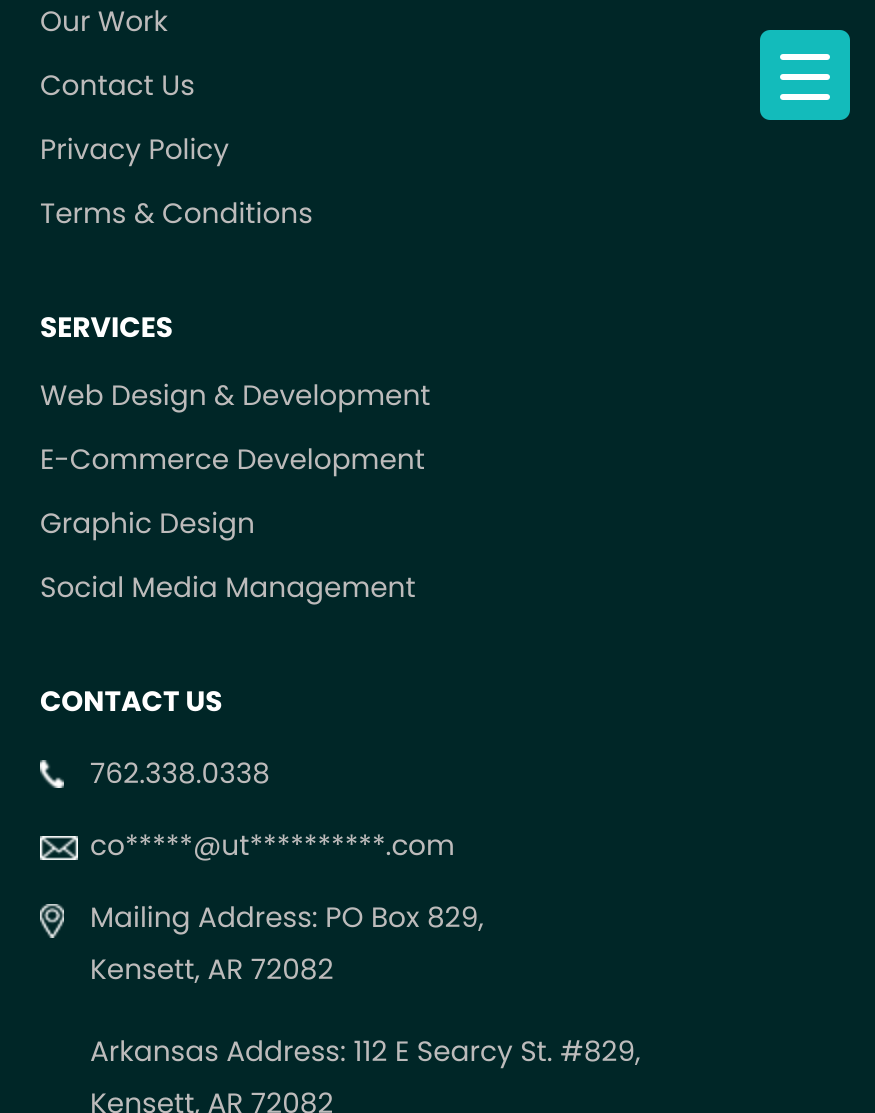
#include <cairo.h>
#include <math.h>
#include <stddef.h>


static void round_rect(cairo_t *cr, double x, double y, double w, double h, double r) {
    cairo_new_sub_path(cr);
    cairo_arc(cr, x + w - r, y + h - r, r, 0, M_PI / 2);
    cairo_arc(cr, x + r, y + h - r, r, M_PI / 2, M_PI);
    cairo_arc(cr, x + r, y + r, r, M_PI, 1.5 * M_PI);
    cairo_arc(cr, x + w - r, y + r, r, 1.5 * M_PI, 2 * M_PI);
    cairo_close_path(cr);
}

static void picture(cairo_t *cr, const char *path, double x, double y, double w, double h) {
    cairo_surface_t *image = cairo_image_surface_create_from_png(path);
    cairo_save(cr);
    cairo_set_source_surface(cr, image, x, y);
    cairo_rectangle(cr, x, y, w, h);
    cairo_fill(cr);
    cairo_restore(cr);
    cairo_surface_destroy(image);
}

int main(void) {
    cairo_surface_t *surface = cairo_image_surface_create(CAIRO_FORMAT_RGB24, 875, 1113);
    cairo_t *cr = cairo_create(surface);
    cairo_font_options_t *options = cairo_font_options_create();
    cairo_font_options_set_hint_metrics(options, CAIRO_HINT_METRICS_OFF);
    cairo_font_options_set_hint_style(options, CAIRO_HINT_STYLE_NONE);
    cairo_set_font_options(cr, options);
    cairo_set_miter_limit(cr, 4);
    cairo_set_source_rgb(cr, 0, 0.149, 0.153);
    cairo_paint(cr);
    cairo_select_font_face(cr, "Poppins", CAIRO_FONT_SLANT_NORMAL, CAIRO_FONT_WEIGHT_NORMAL);
    cairo_set_font_size(cr, 28);
    cairo_set_source_rgb(cr, 0.741, 0.733, 0.733);
    cairo_move_to(cr, 40, 31);
    cairo_show_text(cr, "Our Work");
    cairo_move_to(cr, 40, 95);
    cairo_show_text(cr, "Contact Us");
    cairo_move_to(cr, 40, 159);
    cairo_show_text(cr, "Privacy Policy");
    cairo_move_to(cr, 40, 223);
    cairo_show_text(cr, "Terms & Conditions");
    cairo_select_font_face(cr, "Poppins", CAIRO_FONT_SLANT_NORMAL, CAIRO_FONT_WEIGHT_BOLD);
    cairo_set_source_rgb(cr, 1, 1, 1);
    cairo_move_to(cr, 40, 337);
    cairo_show_text(cr, "SERVICES");
    cairo_select_font_face(cr, "Poppins", CAIRO_FONT_SLANT_NORMAL, CAIRO_FONT_WEIGHT_NORMAL);
    cairo_set_source_rgb(cr, 0.741, 0.733, 0.733);
    cairo_move_to(cr, 40, 405);
    cairo_show_text(cr, "Web Design & Development");
    cairo_move_to(cr, 40, 469);
    cairo_show_text(cr, "E-Commerce Development");
    cairo_move_to(cr, 40, 533);
    cairo_show_text(cr, "Graphic Design");
    cairo_move_to(cr, 40, 597);
    cairo_show_text(cr, "Social Media Management");
    cairo_select_font_face(cr, "Poppins", CAIRO_FONT_SLANT_NORMAL, CAIRO_FONT_WEIGHT_BOLD);
    cairo_set_source_rgb(cr, 1, 1, 1);
    cairo_move_to(cr, 40, 711);
    cairo_show_text(cr, "CONTACT US");
    picture(cr, "img1.png", 40, 760, 24, 28);
    cairo_select_font_face(cr, "Poppins", CAIRO_FONT_SLANT_NORMAL, CAIRO_FONT_WEIGHT_NORMAL);
    cairo_set_source_rgb(cr, 0.741, 0.733, 0.733);
    cairo_move_to(cr, 90, 783);
    cairo_show_text(cr, "762.338.0338");
    picture(cr, "img2.png", 40, 836, 38, 24);
    cairo_move_to(cr, 90, 855);
    cairo_show_text(cr, "co*****@ut**********.c");
    cairo_move_to(cr, 408, 855);
    cairo_show_text(cr, "om");
    picture(cr, "img3.png", 40, 904, 24, 34);
    cairo_move_to(cr, 90, 927);
    cairo_show_text(cr, "Mailing Address: PO Box 829,");
    cairo_move_to(cr, 90, 979);
    cairo_show_text(cr, "Kensett, AR 72082");
    cairo_move_to(cr, 90, 1061);
    cairo_show_text(cr, "Arkansas Address: 112 E Searcy St. #829,");
    cairo_move_to(cr, 90, 1113);
    cairo_show_text(cr, "Kensett, AR 72082");
    cairo_set_source_rgb(cr, 0.078, 0.733, 0.733);
    round_rect(cr, 760, 30, 90, 90, 10);
    cairo_fill(cr);
    cairo_set_source_rgb(cr, 1, 1, 1);
    round_rect(cr, 780, 74, 50, 6, 3);
    cairo_fill(cr);
    round_rect(cr, 780, 54, 50, 6, 3);
    cairo_fill(cr);
    round_rect(cr, 780, 94, 50, 6, 3);
    cairo_fill(cr);
    cairo_surface_write_to_png(surface, "page.png");
    cairo_font_options_destroy(options);
    cairo_destroy(cr);
    cairo_surface_destroy(surface);
    return 0;
}
